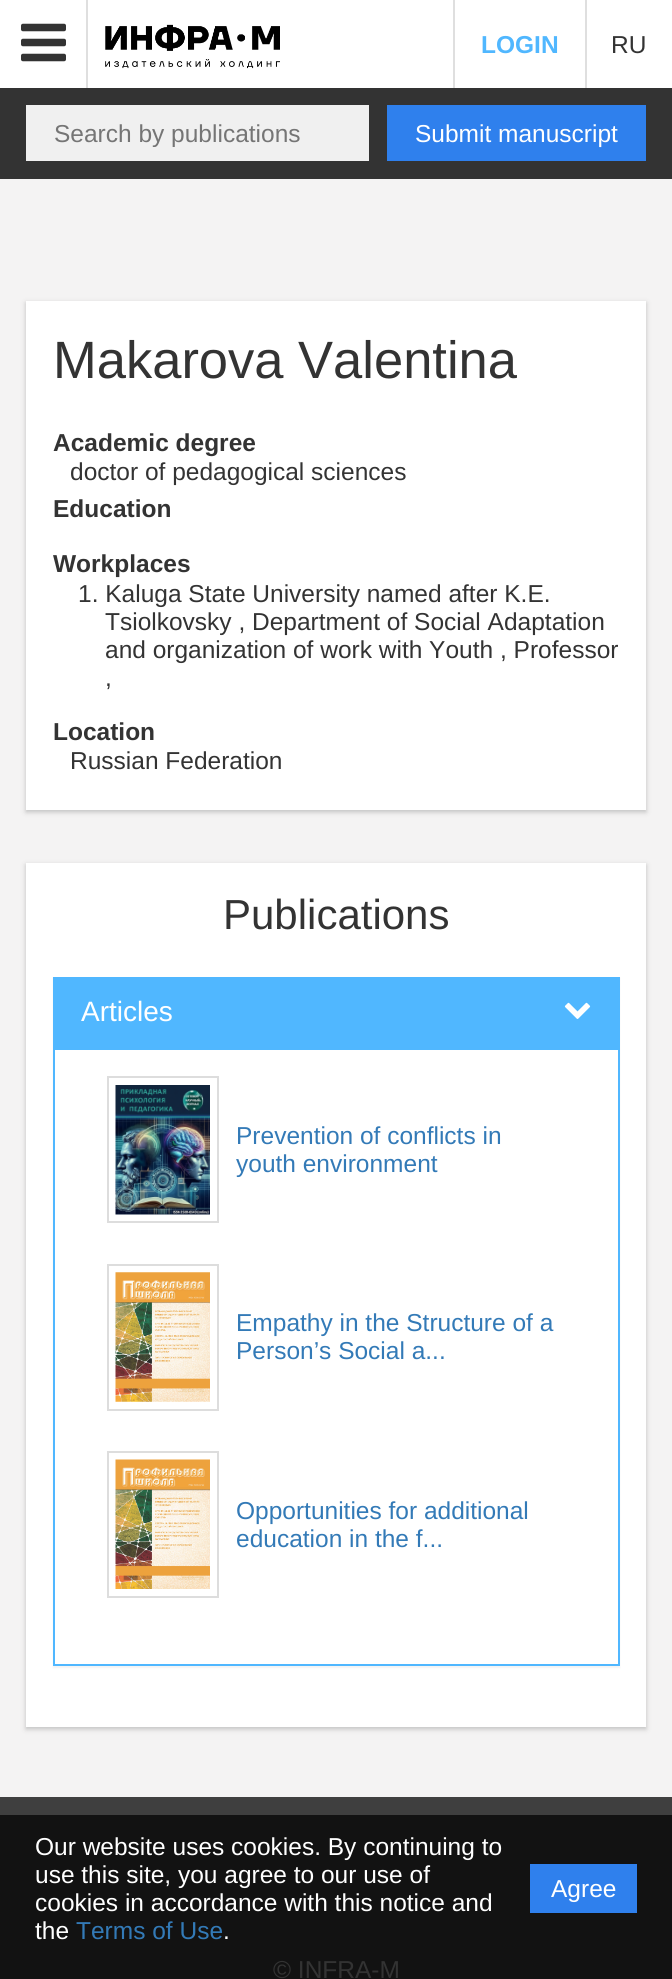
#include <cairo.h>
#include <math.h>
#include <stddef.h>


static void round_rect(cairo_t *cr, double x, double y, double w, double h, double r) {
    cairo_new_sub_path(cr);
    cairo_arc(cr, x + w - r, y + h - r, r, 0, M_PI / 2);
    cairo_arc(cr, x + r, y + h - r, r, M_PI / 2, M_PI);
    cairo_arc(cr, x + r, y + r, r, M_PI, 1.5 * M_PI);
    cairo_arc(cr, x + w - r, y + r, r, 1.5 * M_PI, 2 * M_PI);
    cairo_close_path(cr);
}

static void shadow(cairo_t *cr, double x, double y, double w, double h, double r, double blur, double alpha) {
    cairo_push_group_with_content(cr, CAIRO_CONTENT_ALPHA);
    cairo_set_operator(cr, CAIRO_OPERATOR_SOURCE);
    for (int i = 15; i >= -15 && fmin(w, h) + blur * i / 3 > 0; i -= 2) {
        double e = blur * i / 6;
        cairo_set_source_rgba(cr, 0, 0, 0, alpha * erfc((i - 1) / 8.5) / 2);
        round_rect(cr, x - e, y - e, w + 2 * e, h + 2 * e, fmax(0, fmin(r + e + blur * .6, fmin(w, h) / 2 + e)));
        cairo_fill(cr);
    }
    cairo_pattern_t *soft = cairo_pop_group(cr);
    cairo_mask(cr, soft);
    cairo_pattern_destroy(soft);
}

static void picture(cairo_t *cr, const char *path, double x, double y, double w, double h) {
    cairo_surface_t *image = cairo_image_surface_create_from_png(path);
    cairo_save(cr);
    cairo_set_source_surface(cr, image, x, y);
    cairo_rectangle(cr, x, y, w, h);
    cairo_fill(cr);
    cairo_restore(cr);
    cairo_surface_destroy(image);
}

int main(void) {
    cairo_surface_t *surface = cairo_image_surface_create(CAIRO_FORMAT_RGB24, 672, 1979);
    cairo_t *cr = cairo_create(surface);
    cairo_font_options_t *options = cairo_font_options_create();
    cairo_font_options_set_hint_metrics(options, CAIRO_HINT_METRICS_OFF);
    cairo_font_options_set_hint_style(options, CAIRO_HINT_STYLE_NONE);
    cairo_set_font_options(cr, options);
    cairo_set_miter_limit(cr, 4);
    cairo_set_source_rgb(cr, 0.957, 0.953, 0.953);
    cairo_paint(cr);
    cairo_set_source_rgb(cr, 0.247, 0.247, 0.247);
    cairo_rectangle(cr, 0, 1797, 672, 18);
    cairo_fill(cr);
    cairo_set_source_rgb(cr, 1, 1, 1);
    cairo_rectangle(cr, 0, 0, 672, 88);
    cairo_fill(cr);
    cairo_set_source_rgb(cr, 0.875, 0.875, 0.875);
    cairo_rectangle(cr, 86, 0, 2, 88);
    cairo_fill(cr);
    picture(cr, "img1.png", 21, 23, 45, 39);
    picture(cr, "img2.png", 105, 24, 175, 45);
    cairo_rectangle(cr, 453, 0, 2, 88);
    cairo_fill(cr);
    cairo_select_font_face(cr, "Liberation Sans", CAIRO_FONT_SLANT_NORMAL, CAIRO_FONT_WEIGHT_BOLD);
    cairo_set_font_size(cr, 24.5);
    cairo_set_source_rgb(cr, 0.314, 0.718, 1);
    cairo_move_to(cr, 481, 53);
    cairo_show_text(cr, "LOGIN");
    cairo_set_source_rgb(cr, 0.875, 0.875, 0.875);
    cairo_rectangle(cr, 585, 0, 2, 88);
    cairo_fill(cr);
    cairo_select_font_face(cr, "Liberation Sans", CAIRO_FONT_SLANT_NORMAL, CAIRO_FONT_WEIGHT_NORMAL);
    cairo_set_source_rgb(cr, 0.2, 0.2, 0.2);
    cairo_move_to(cr, 611, 53);
    cairo_show_text(cr, "RU");
    cairo_rectangle(cr, 0, 88, 672, 91);
    cairo_fill(cr);
    cairo_set_source_rgb(cr, 0.941, 0.941, 0.941);
    cairo_rectangle(cr, 26, 105, 343, 56);
    cairo_fill(cr);
    cairo_save(cr);
    cairo_rectangle(cr, 54, 119, 287, 28);
    cairo_clip(cr);
    cairo_set_source_rgb(cr, 0.459, 0.459, 0.459);
    cairo_move_to(cr, 54, 142);
    cairo_show_text(cr, "Search by publications");
    cairo_restore(cr);
    cairo_set_source_rgb(cr, 0.184, 0.502, 0.929);
    cairo_rectangle(cr, 387, 105, 259, 56);
    cairo_fill(cr);
    cairo_set_source_rgb(cr, 1, 1, 1);
    cairo_move_to(cr, 415, 142);
    cairo_show_text(cr, "Submit manuscript");
    cairo_set_source_rgb(cr, 0.749, 0.749, 0.749);
    shadow(cr, 26, 303, 620, 509, 0, 2.5, 1);
    cairo_set_source_rgb(cr, 1, 1, 1);
    cairo_rectangle(cr, 26, 301, 620, 509);
    cairo_fill(cr);
    cairo_set_font_size(cr, 52.5);
    cairo_set_source_rgb(cr, 0.2, 0.2, 0.2);
    cairo_move_to(cr, 53, 378);
    cairo_show_text(cr, "Makarova Valentina");
    cairo_select_font_face(cr, "Liberation Sans", CAIRO_FONT_SLANT_NORMAL, CAIRO_FONT_WEIGHT_BOLD);
    cairo_set_font_size(cr, 24.5);
    cairo_move_to(cr, 53, 451);
    cairo_show_text(cr, "Academic degree");
    cairo_select_font_face(cr, "Liberation Sans", CAIRO_FONT_SLANT_NORMAL, CAIRO_FONT_WEIGHT_NORMAL);
    cairo_move_to(cr, 70, 480);
    cairo_show_text(cr, "doctor of pedagogical sciences");
    cairo_select_font_face(cr, "Liberation Sans", CAIRO_FONT_SLANT_NORMAL, CAIRO_FONT_WEIGHT_BOLD);
    cairo_move_to(cr, 53, 517);
    cairo_show_text(cr, "Education");
    cairo_move_to(cr, 53, 572);
    cairo_show_text(cr, "Workplaces");
    cairo_select_font_face(cr, "Liberation Sans", CAIRO_FONT_SLANT_NORMAL, CAIRO_FONT_WEIGHT_NORMAL);
    cairo_move_to(cr, 78, 602);
    cairo_show_text(cr, "1. Kaluga State University named after K.E.");
    cairo_move_to(cr, 105, 630);
    cairo_show_text(cr, "Tsiolkovsky , Department of Social Adaptation");
    cairo_move_to(cr, 105, 658);
    cairo_show_text(cr, "and organization of work with Youth , Professor");
    cairo_move_to(cr, 105, 686);
    cairo_show_text(cr, ",");
    cairo_select_font_face(cr, "Liberation Sans", CAIRO_FONT_SLANT_NORMAL, CAIRO_FONT_WEIGHT_BOLD);
    cairo_move_to(cr, 53, 740);
    cairo_show_text(cr, "Location");
    cairo_select_font_face(cr, "Liberation Sans", CAIRO_FONT_SLANT_NORMAL, CAIRO_FONT_WEIGHT_NORMAL);
    cairo_move_to(cr, 70, 769);
    cairo_show_text(cr, "Russian Federation");
    cairo_set_source_rgb(cr, 0.749, 0.749, 0.749);
    shadow(cr, 26, 865, 620, 864, 0, 2.5, 1);
    cairo_set_source_rgb(cr, 1, 1, 1);
    cairo_rectangle(cr, 26, 863, 620, 864);
    cairo_fill(cr);
    cairo_set_font_size(cr, 42);
    cairo_set_source_rgb(cr, 0.2, 0.2, 0.2);
    cairo_move_to(cr, 223, 929);
    cairo_show_text(cr, "Publications");
    cairo_set_source_rgb(cr, 0, 0, 0);
    shadow(cr, 53, 978, 567, 690, 0, 1, 0.05);
    cairo_set_source_rgb(cr, 1, 1, 1);
    cairo_rectangle(cr, 55, 1050, 563, 614);
    cairo_fill(cr);
    cairo_rectangle(cr, 54, 978, 565, 687);
    cairo_set_source_rgb(cr, 0.314, 0.718, 1);
    cairo_stroke(cr);
    cairo_rectangle(cr, 55, 979, 563, 69);
    cairo_fill(cr);
    cairo_set_font_size(cr, 28);
    cairo_set_source_rgb(cr, 1, 1, 1);
    cairo_move_to(cr, 81, 1021);
    cairo_show_text(cr, "Articles");
    picture(cr, "img3.png", 564, 1002, 27, 17);
    cairo_set_source_rgb(cr, 0.314, 0.718, 1);
    cairo_rectangle(cr, 54, 1048, 564, 2);
    cairo_fill(cr);
    cairo_rectangle(cr, 108, 1077, 110, 145);
    cairo_set_source_rgb(cr, 0.867, 0.867, 0.867);
    cairo_stroke(cr);
    picture(cr, "img4.png", 115, 1085, 95, 130);
    cairo_set_font_size(cr, 24.5);
    cairo_set_source_rgb(cr, 0.2, 0.478, 0.718);
    cairo_move_to(cr, 236, 1144);
    cairo_show_text(cr, "Prevention of conflicts in");
    cairo_move_to(cr, 236, 1172);
    cairo_show_text(cr, "youth environment");
    cairo_rectangle(cr, 108, 1265, 110, 145);
    cairo_set_source_rgb(cr, 0.867, 0.867, 0.867);
    cairo_stroke(cr);
    picture(cr, "img5.png", 115, 1272, 95, 130);
    cairo_set_source_rgb(cr, 0.2, 0.478, 0.718);
    cairo_move_to(cr, 236, 1331);
    cairo_show_text(cr, "Empathy in the Structure of a");
    cairo_move_to(cr, 236, 1359);
    cairo_show_text(cr, "Person’s Social a...");
    cairo_rectangle(cr, 108, 1452, 110, 145);
    cairo_set_source_rgb(cr, 0.867, 0.867, 0.867);
    cairo_stroke(cr);
    picture(cr, "img6.png", 115, 1459, 95, 130);
    cairo_set_source_rgb(cr, 0.2, 0.478, 0.718);
    cairo_move_to(cr, 236, 1519);
    cairo_show_text(cr, "Opportunities for additional");
    cairo_move_to(cr, 236, 1547);
    cairo_show_text(cr, "education in the f...");
    cairo_set_source_rgb(cr, 0.071, 0.071, 0.071);
    cairo_rectangle(cr, 0, 1815, 672, 164);
    cairo_fill(cr);
    cairo_set_source_rgb(cr, 1, 1, 1);
    cairo_move_to(cr, 35, 1855);
    cairo_show_text(cr, "Our website uses cookies. By continuing to");
    cairo_move_to(cr, 35, 1883);
    cairo_show_text(cr, "use this site, you agree to our use of");
    cairo_move_to(cr, 35, 1911);
    cairo_show_text(cr, "cookies in accordance with this notice and");
    cairo_move_to(cr, 35, 1939);
    cairo_show_text(cr, "the");
    cairo_set_source_rgb(cr, 0.2, 0.478, 0.718);
    cairo_move_to(cr, 76, 1939);
    cairo_show_text(cr, "Terms of Use");
    cairo_set_source_rgb(cr, 1, 1, 1);
    cairo_move_to(cr, 223, 1939);
    cairo_show_text(cr, ".");
    cairo_set_source_rgb(cr, 0.184, 0.502, 0.929);
    cairo_rectangle(cr, 530, 1864, 107, 49);
    cairo_fill(cr);
    cairo_set_source_rgb(cr, 1, 1, 1);
    cairo_move_to(cr, 551, 1897);
    cairo_show_text(cr, "Agree");
    cairo_set_source_rgb(cr, 0.2, 0.2, 0.2);
    cairo_move_to(cr, 273, 1978);
    cairo_show_text(cr, "© INFRA-M");
    cairo_surface_write_to_png(surface, "page.png");
    cairo_font_options_destroy(options);
    cairo_destroy(cr);
    cairo_surface_destroy(surface);
    return 0;
}
